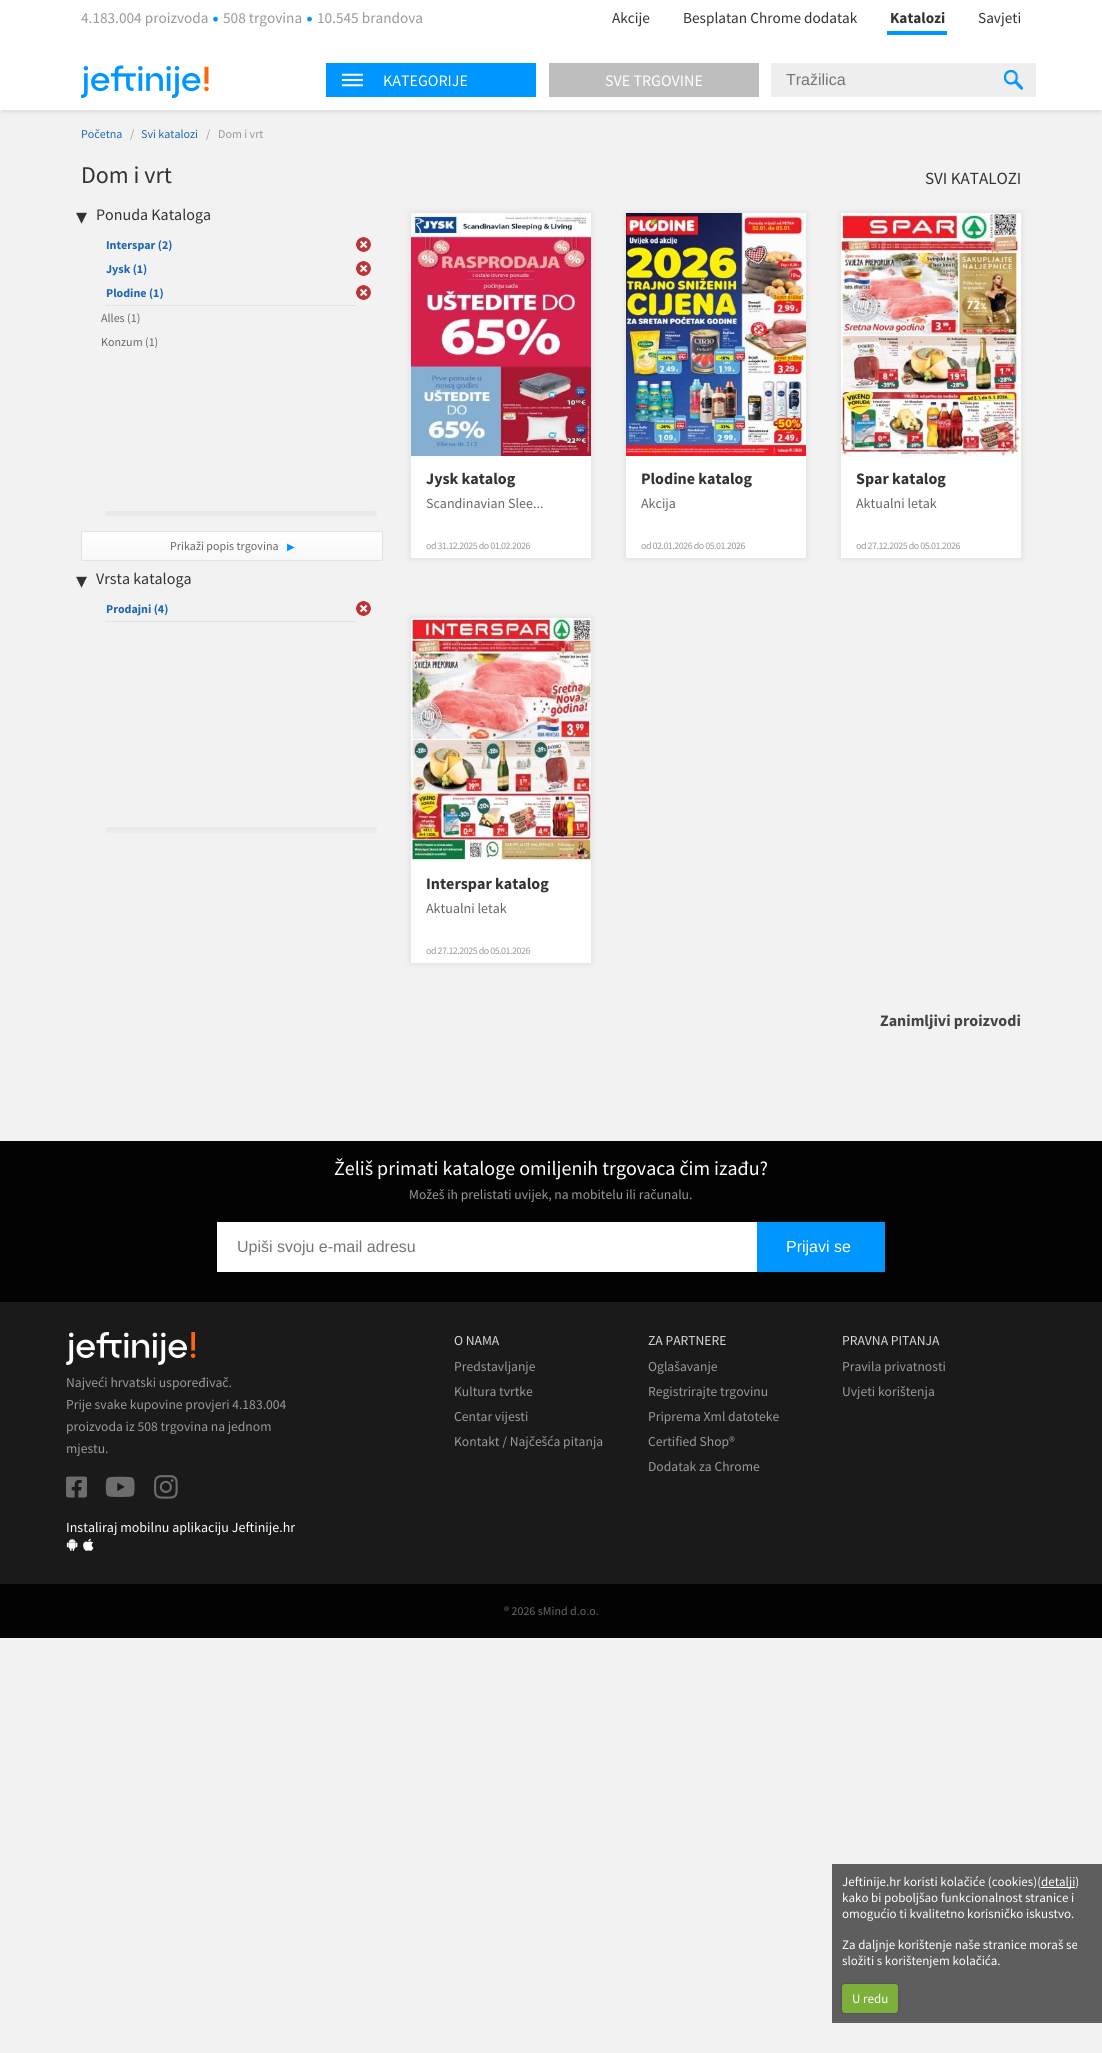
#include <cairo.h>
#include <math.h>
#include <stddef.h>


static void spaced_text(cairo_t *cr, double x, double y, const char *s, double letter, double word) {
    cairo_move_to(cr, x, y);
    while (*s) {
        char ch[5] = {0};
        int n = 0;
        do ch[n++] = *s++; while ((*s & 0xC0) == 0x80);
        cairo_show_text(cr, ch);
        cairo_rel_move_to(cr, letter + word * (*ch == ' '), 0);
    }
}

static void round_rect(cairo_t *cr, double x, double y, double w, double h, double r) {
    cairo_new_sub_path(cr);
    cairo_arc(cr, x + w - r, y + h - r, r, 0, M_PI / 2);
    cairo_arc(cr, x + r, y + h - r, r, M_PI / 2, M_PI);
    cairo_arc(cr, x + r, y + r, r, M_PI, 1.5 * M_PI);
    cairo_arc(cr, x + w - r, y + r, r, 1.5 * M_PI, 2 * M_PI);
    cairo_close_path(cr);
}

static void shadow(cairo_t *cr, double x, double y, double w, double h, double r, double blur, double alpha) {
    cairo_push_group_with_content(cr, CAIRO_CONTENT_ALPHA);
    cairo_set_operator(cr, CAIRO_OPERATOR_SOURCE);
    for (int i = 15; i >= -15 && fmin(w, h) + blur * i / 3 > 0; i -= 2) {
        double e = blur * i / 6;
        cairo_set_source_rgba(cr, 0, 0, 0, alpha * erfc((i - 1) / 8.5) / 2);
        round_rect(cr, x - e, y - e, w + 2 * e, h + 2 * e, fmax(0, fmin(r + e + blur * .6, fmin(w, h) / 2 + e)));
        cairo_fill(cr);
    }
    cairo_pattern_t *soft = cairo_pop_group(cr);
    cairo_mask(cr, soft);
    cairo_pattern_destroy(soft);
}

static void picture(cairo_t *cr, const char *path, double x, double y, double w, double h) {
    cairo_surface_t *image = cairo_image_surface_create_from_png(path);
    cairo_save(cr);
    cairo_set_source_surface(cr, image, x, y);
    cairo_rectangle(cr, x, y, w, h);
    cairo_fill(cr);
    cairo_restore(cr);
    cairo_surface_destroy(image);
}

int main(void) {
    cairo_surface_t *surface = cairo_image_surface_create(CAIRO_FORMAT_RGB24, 1102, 2053);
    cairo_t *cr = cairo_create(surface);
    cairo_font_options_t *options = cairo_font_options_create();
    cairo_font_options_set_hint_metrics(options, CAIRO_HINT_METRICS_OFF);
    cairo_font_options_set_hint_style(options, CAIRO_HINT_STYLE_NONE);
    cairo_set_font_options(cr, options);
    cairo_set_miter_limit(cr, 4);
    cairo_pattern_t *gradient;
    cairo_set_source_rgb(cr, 0.949, 0.949, 0.949);
    cairo_paint(cr);
    cairo_set_source_rgb(cr, 1, 1, 1);
    cairo_rectangle(cr, 0, 0, 1102, 50);
    cairo_fill(cr);
    cairo_select_font_face(cr, "Source Sans Pro", CAIRO_FONT_SLANT_NORMAL, CAIRO_FONT_WEIGHT_NORMAL);
    cairo_set_font_size(cr, 15.25);
    cairo_set_source_rgb(cr, 0.6, 0.6, 0.6);
    cairo_move_to(cr, 81, 23);
    cairo_show_text(cr, "4.183.004 proizvoda");
    picture(cr, "img1.png", 213, 16, 5, 6);
    cairo_move_to(cr, 223, 23);
    cairo_show_text(cr, "508 trgovina");
    picture(cr, "img1.png", 307, 16, 5, 6);
    cairo_move_to(cr, 317, 23);
    cairo_show_text(cr, "10.545 brandova");
    cairo_set_source_rgb(cr, 0.2, 0.2, 0.2);
    cairo_move_to(cr, 612, 23);
    cairo_show_text(cr, "Akcije");
    cairo_move_to(cr, 683, 23);
    cairo_show_text(cr, "Besplatan Chrome dodatak");
    cairo_select_font_face(cr, "Source Sans Pro", CAIRO_FONT_SLANT_NORMAL, CAIRO_FONT_WEIGHT_BOLD);
    cairo_move_to(cr, 890, 23);
    cairo_show_text(cr, "Katalozi");
    cairo_set_source_rgb(cr, 0, 0.588, 1);
    cairo_rectangle(cr, 887, 31, 60, 4);
    cairo_fill(cr);
    cairo_select_font_face(cr, "Source Sans Pro", CAIRO_FONT_SLANT_NORMAL, CAIRO_FONT_WEIGHT_NORMAL);
    cairo_set_source_rgb(cr, 0.2, 0.2, 0.2);
    cairo_move_to(cr, 978, 23);
    cairo_show_text(cr, "Savjeti");
    cairo_set_source_rgb(cr, 0, 0, 0);
    shadow(cr, 2, 56, 1098, 56, 0, 2, 0.1);
    cairo_set_source_rgb(cr, 1, 1, 1);
    cairo_rectangle(cr, 0, 50, 1102, 60);
    cairo_fill(cr);
    picture(cr, "img2.png", 81, 65, 128, 33);
    cairo_set_source_rgb(cr, 0, 0.588, 1);
    cairo_rectangle(cr, 326, 63, 210, 34);
    cairo_fill(cr);
    picture(cr, "img3.png", 341, 73, 22, 14);
    cairo_set_font_size(cr, 16);
    cairo_set_source_rgb(cr, 1, 1, 1);
    cairo_move_to(cr, 383, 86);
    cairo_show_text(cr, "KATEGORIJE");
    cairo_set_source_rgb(cr, 0.745, 0.745, 0.745);
    cairo_rectangle(cr, 549, 63, 210, 34);
    cairo_fill(cr);
    cairo_set_source_rgb(cr, 1, 1, 1);
    cairo_move_to(cr, 605, 86);
    cairo_show_text(cr, "SVE TRGOVINE");
    cairo_set_source_rgb(cr, 0.933, 0.933, 0.933);
    cairo_rectangle(cr, 771, 63, 265, 34);
    cairo_fill(cr);
    cairo_select_font_face(cr, "Liberation Sans", CAIRO_FONT_SLANT_NORMAL, CAIRO_FONT_WEIGHT_NORMAL);
    cairo_set_source_rgb(cr, 0.459, 0.459, 0.459);
    cairo_move_to(cr, 786, 85);
    cairo_show_text(cr, "Tražilica");
    picture(cr, "img4.png", 1004, 70, 19, 20);
    cairo_select_font_face(cr, "Source Sans Pro", CAIRO_FONT_SLANT_NORMAL, CAIRO_FONT_WEIGHT_NORMAL);
    cairo_set_font_size(cr, 12);
    cairo_set_source_rgb(cr, 0.118, 0.404, 0.702);
    cairo_move_to(cr, 81, 138);
    cairo_show_text(cr, "Početna");
    cairo_set_source_rgb(cr, 0.6, 0.6, 0.6);
    cairo_move_to(cr, 130, 138);
    cairo_show_text(cr, "/");
    cairo_set_source_rgb(cr, 0.118, 0.404, 0.702);
    cairo_move_to(cr, 141, 138);
    cairo_show_text(cr, "Svi katalozi");
    cairo_set_source_rgb(cr, 0.6, 0.6, 0.6);
    cairo_move_to(cr, 206, 138);
    cairo_show_text(cr, "/");
    cairo_move_to(cr, 218, 138);
    cairo_show_text(cr, "Dom i vrt");
    cairo_set_font_size(cr, 24);
    cairo_set_source_rgb(cr, 0.2, 0.2, 0.2);
    cairo_move_to(cr, 81, 183);
    cairo_show_text(cr, "Dom i vrt");
    cairo_select_font_face(cr, "DejaVu Sans", CAIRO_FONT_SLANT_NORMAL, CAIRO_FONT_WEIGHT_NORMAL);
    cairo_set_font_size(cr, 22);
    cairo_move_to(cr, 76, 224);
    cairo_show_text(cr, "▾");
    cairo_select_font_face(cr, "Source Sans Pro", CAIRO_FONT_SLANT_NORMAL, CAIRO_FONT_WEIGHT_NORMAL);
    cairo_set_font_size(cr, 16);
    cairo_move_to(cr, 96, 220);
    cairo_show_text(cr, "Ponuda Kataloga");
    cairo_new_path(cr);
    cairo_move_to(cr, 106, 305.5);
    cairo_line_to(cr, 356, 305.5);
    cairo_set_source_rgb(cr, 0.824, 0.824, 0.827);
    cairo_set_line_width(cr, 1);
    cairo_set_dash(cr, (double[]){1, 1}, 2, 0);
    cairo_stroke(cr);
    cairo_select_font_face(cr, "Source Sans Pro", CAIRO_FONT_SLANT_NORMAL, CAIRO_FONT_WEIGHT_BOLD);
    cairo_set_font_size(cr, 12);
    cairo_set_source_rgb(cr, 0.118, 0.404, 0.702);
    cairo_move_to(cr, 106, 249);
    cairo_show_text(cr, "Interspar (2)");
    picture(cr, "img5.png", 356, 237, 15, 15);
    cairo_move_to(cr, 106, 273);
    cairo_show_text(cr, "Jysk (1)");
    picture(cr, "img5.png", 356, 261, 15, 15);
    cairo_move_to(cr, 106, 297);
    cairo_show_text(cr, "Plodine (1)");
    picture(cr, "img5.png", 356, 285, 15, 15);
    cairo_save(cr);
    cairo_rectangle(cr, 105, 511, 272, 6);
    cairo_clip(cr);
    cairo_set_source_rgb(cr, 0, 0, 0);
    shadow(cr, 106, 321, 270, 195, 0, 2.5, 0.05);
    cairo_restore(cr);
    cairo_select_font_face(cr, "Source Sans Pro", CAIRO_FONT_SLANT_NORMAL, CAIRO_FONT_WEIGHT_NORMAL);
    cairo_set_source_rgb(cr, 0.4, 0.4, 0.4);
    cairo_move_to(cr, 101, 322);
    cairo_show_text(cr, "Alles (1)");
    cairo_move_to(cr, 101, 346);
    cairo_show_text(cr, "Konzum (1)");
    cairo_save(cr);
    round_rect(cr, 81, 531, 302, 30, 2);
    cairo_clip(cr);
    gradient = cairo_pattern_create_linear(232, 532, 232, 560);
    cairo_pattern_add_color_stop_rgba(gradient, 0, 1, 1, 1, 1);
    cairo_pattern_add_color_stop_rgba(gradient, 1, 0.973, 0.973, 0.973, 1);
    cairo_set_source(cr, gradient);
    cairo_pattern_destroy(gradient);
    cairo_rectangle(cr, 81, 532, 302, 28);
    cairo_fill(cr);
    cairo_restore(cr);
    round_rect(cr, 81.5, 531.5, 301, 29, 1.5);
    cairo_set_source_rgb(cr, 0.89, 0.89, 0.89);
    cairo_set_dash(cr, NULL, 0, 0);
    cairo_stroke(cr);
    cairo_set_source_rgb(cr, 0.4, 0.4, 0.4);
    cairo_move_to(cr, 170, 550);
    cairo_show_text(cr, "Prikaži popis trgovina");
    cairo_select_font_face(cr, "DejaVu Sans", CAIRO_FONT_SLANT_NORMAL, CAIRO_FONT_WEIGHT_NORMAL);
    cairo_set_font_size(cr, 10);
    cairo_set_source_rgb(cr, 0, 0.588, 1);
    cairo_move_to(cr, 287, 550);
    cairo_show_text(cr, "▶");
    cairo_set_font_size(cr, 22);
    cairo_set_source_rgb(cr, 0.2, 0.2, 0.2);
    cairo_move_to(cr, 76, 588);
    cairo_show_text(cr, "▾");
    cairo_select_font_face(cr, "Source Sans Pro", CAIRO_FONT_SLANT_NORMAL, CAIRO_FONT_WEIGHT_NORMAL);
    cairo_set_font_size(cr, 16);
    cairo_move_to(cr, 96, 584);
    cairo_show_text(cr, "Vrsta kataloga");
    cairo_new_path(cr);
    cairo_move_to(cr, 106, 621.5);
    cairo_line_to(cr, 356, 621.5);
    cairo_set_source_rgb(cr, 0.824, 0.824, 0.827);
    cairo_set_dash(cr, (double[]){1, 1}, 2, 0);
    cairo_stroke(cr);
    cairo_select_font_face(cr, "Source Sans Pro", CAIRO_FONT_SLANT_NORMAL, CAIRO_FONT_WEIGHT_BOLD);
    cairo_set_font_size(cr, 12);
    cairo_set_source_rgb(cr, 0.118, 0.404, 0.702);
    cairo_move_to(cr, 106, 613);
    cairo_show_text(cr, "Prodajni (4)");
    picture(cr, "img5.png", 356, 601, 15, 15);
    cairo_save(cr);
    cairo_rectangle(cr, 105, 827, 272, 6);
    cairo_clip(cr);
    cairo_set_source_rgb(cr, 0, 0, 0);
    shadow(cr, 106, 637, 270, 195, 0, 2.5, 0.05);
    cairo_restore(cr);
    cairo_select_font_face(cr, "Source Sans Pro", CAIRO_FONT_SLANT_NORMAL, CAIRO_FONT_WEIGHT_NORMAL);
    cairo_set_font_size(cr, 17);
    cairo_set_source_rgb(cr, 0.2, 0.2, 0.2);
    cairo_move_to(cr, 925, 184);
    cairo_show_text(cr, "SVI KATALOZI");
    cairo_set_source_rgb(cr, 0, 0, 0);
    shadow(cr, 411, 213, 180, 345, 0, 3.5, 0.1);
    cairo_set_source_rgb(cr, 1, 1, 1);
    cairo_rectangle(cr, 411, 456, 180, 102);
    cairo_fill(cr);
    picture(cr, "img6.png", 411, 213, 180, 243);
    cairo_select_font_face(cr, "Source Sans Pro", CAIRO_FONT_SLANT_NORMAL, CAIRO_FONT_WEIGHT_BOLD);
    cairo_set_font_size(cr, 16);
    cairo_set_source_rgb(cr, 0.2, 0.2, 0.2);
    cairo_move_to(cr, 426, 484);
    cairo_show_text(cr, "Jysk katalog");
    cairo_select_font_face(cr, "Source Sans Pro", CAIRO_FONT_SLANT_NORMAL, CAIRO_FONT_WEIGHT_NORMAL);
    cairo_set_font_size(cr, 14);
    cairo_set_source_rgb(cr, 0.4, 0.4, 0.4);
    cairo_move_to(cr, 426, 508);
    cairo_show_text(cr, "Scandinavian Slee...");
    cairo_set_font_size(cr, 10);
    cairo_set_source_rgb(cr, 0.6, 0.6, 0.6);
    spaced_text(cr, 426, 549, "od 31.12.2025 do 01.02.2026", -0.5, 0);
    cairo_set_source_rgb(cr, 0, 0, 0);
    shadow(cr, 626, 213, 180, 345, 0, 3.5, 0.1);
    cairo_set_source_rgb(cr, 1, 1, 1);
    cairo_rectangle(cr, 626, 456, 180, 102);
    cairo_fill(cr);
    picture(cr, "img7.png", 626, 213, 180, 243);
    cairo_select_font_face(cr, "Source Sans Pro", CAIRO_FONT_SLANT_NORMAL, CAIRO_FONT_WEIGHT_BOLD);
    cairo_set_font_size(cr, 16);
    cairo_set_source_rgb(cr, 0.2, 0.2, 0.2);
    cairo_move_to(cr, 641, 484);
    cairo_show_text(cr, "Plodine katalog");
    cairo_select_font_face(cr, "Source Sans Pro", CAIRO_FONT_SLANT_NORMAL, CAIRO_FONT_WEIGHT_NORMAL);
    cairo_set_font_size(cr, 14);
    cairo_set_source_rgb(cr, 0.4, 0.4, 0.4);
    cairo_move_to(cr, 641, 508);
    cairo_show_text(cr, "Akcija");
    cairo_set_font_size(cr, 10);
    cairo_set_source_rgb(cr, 0.6, 0.6, 0.6);
    spaced_text(cr, 641, 549, "od 02.01.2026 do 05.01.2026", -0.5, 0);
    cairo_set_source_rgb(cr, 0, 0, 0);
    shadow(cr, 841, 213, 180, 345, 0, 3.5, 0.1);
    cairo_set_source_rgb(cr, 1, 1, 1);
    cairo_rectangle(cr, 841, 456, 180, 102);
    cairo_fill(cr);
    picture(cr, "img8.png", 841, 213, 180, 243);
    cairo_select_font_face(cr, "Source Sans Pro", CAIRO_FONT_SLANT_NORMAL, CAIRO_FONT_WEIGHT_BOLD);
    cairo_set_font_size(cr, 16);
    cairo_set_source_rgb(cr, 0.2, 0.2, 0.2);
    cairo_move_to(cr, 856, 484);
    cairo_show_text(cr, "Spar katalog");
    cairo_select_font_face(cr, "Source Sans Pro", CAIRO_FONT_SLANT_NORMAL, CAIRO_FONT_WEIGHT_NORMAL);
    cairo_set_font_size(cr, 14);
    cairo_set_source_rgb(cr, 0.4, 0.4, 0.4);
    cairo_move_to(cr, 856, 508);
    cairo_show_text(cr, "Aktualni letak");
    cairo_set_font_size(cr, 10);
    cairo_set_source_rgb(cr, 0.6, 0.6, 0.6);
    spaced_text(cr, 856, 549, "od 27.12.2025 do 05.01.2026", -0.5, 0);
    cairo_set_source_rgb(cr, 0, 0, 0);
    shadow(cr, 411, 618, 180, 345, 0, 3.5, 0.1);
    cairo_set_source_rgb(cr, 1, 1, 1);
    cairo_rectangle(cr, 411, 861, 180, 102);
    cairo_fill(cr);
    picture(cr, "img9.png", 411, 618, 180, 243);
    cairo_select_font_face(cr, "Source Sans Pro", CAIRO_FONT_SLANT_NORMAL, CAIRO_FONT_WEIGHT_BOLD);
    cairo_set_font_size(cr, 16);
    cairo_set_source_rgb(cr, 0.2, 0.2, 0.2);
    cairo_move_to(cr, 426, 889);
    cairo_show_text(cr, "Interspar katalog");
    cairo_select_font_face(cr, "Source Sans Pro", CAIRO_FONT_SLANT_NORMAL, CAIRO_FONT_WEIGHT_NORMAL);
    cairo_set_font_size(cr, 14);
    cairo_set_source_rgb(cr, 0.4, 0.4, 0.4);
    cairo_move_to(cr, 426, 913);
    cairo_show_text(cr, "Aktualni letak");
    cairo_set_font_size(cr, 10);
    cairo_set_source_rgb(cr, 0.6, 0.6, 0.6);
    spaced_text(cr, 426, 954, "od 27.12.2025 do 05.01.2026", -0.5, 0);
    cairo_select_font_face(cr, "Source Sans Pro", CAIRO_FONT_SLANT_NORMAL, CAIRO_FONT_WEIGHT_BOLD);
    cairo_set_font_size(cr, 16);
    cairo_set_source_rgb(cr, 0.267, 0.267, 0.267);
    cairo_move_to(cr, 880, 1026);
    cairo_show_text(cr, "Zanimljivi proizvodi");
    cairo_set_source_rgb(cr, 0.012, 0.012, 0.012);
    cairo_rectangle(cr, 0, 1141, 1102, 161);
    cairo_fill(cr);
    cairo_select_font_face(cr, "Source Sans Pro", CAIRO_FONT_SLANT_NORMAL, CAIRO_FONT_WEIGHT_NORMAL);
    cairo_set_font_size(cr, 20);
    cairo_set_source_rgb(cr, 1, 1, 1);
    cairo_move_to(cr, 334, 1175);
    cairo_show_text(cr, "Želiš primati kataloge omiljenih trgovaca čim izađu?");
    cairo_set_font_size(cr, 13.6);
    cairo_set_source_rgb(cr, 0.6, 0.6, 0.6);
    cairo_move_to(cr, 409, 1199);
    cairo_show_text(cr, "Možeš ih prelistati uvijek, na mobitelu ili računalu.");
    cairo_set_source_rgb(cr, 1, 1, 1);
    cairo_rectangle(cr, 217, 1222, 540, 50);
    cairo_fill(cr);
    cairo_select_font_face(cr, "Liberation Sans", CAIRO_FONT_SLANT_NORMAL, CAIRO_FONT_WEIGHT_NORMAL);
    cairo_set_font_size(cr, 16);
    cairo_set_source_rgb(cr, 0.459, 0.459, 0.459);
    cairo_move_to(cr, 237, 1252);
    cairo_show_text(cr, "Upiši svoju e-mail adresu");
    cairo_set_source_rgb(cr, 0, 0.588, 1);
    cairo_rectangle(cr, 757, 1222, 128, 50);
    cairo_fill(cr);
    cairo_set_source_rgb(cr, 1, 1, 1);
    cairo_move_to(cr, 786, 1252);
    cairo_show_text(cr, "Prijavi se");
    cairo_set_source_rgb(cr, 0.102, 0.102, 0.102);
    cairo_rectangle(cr, 0, 1302, 1102, 282);
    cairo_fill(cr);
    cairo_select_font_face(cr, "Source Sans Pro", CAIRO_FONT_SLANT_NORMAL, CAIRO_FONT_WEIGHT_NORMAL);
    cairo_set_font_size(cr, 13.6);
    cairo_set_source_rgb(cr, 0.847, 0.847, 0.847);
    cairo_move_to(cr, 454, 1345);
    cairo_show_text(cr, "O NAMA");
    cairo_set_source_rgb(cr, 0.6, 0.6, 0.6);
    cairo_move_to(cr, 454, 1371);
    cairo_show_text(cr, "Predstavljanje");
    cairo_move_to(cr, 454, 1396);
    cairo_show_text(cr, "Kultura tvrtke");
    cairo_move_to(cr, 454, 1421);
    cairo_show_text(cr, "Centar vijesti");
    cairo_move_to(cr, 454, 1446);
    cairo_show_text(cr, "Kontakt / Najčešća pitanja");
    cairo_set_source_rgb(cr, 0.847, 0.847, 0.847);
    cairo_move_to(cr, 648, 1345);
    cairo_show_text(cr, "ZA PARTNERE");
    cairo_set_source_rgb(cr, 0.6, 0.6, 0.6);
    cairo_move_to(cr, 648, 1371);
    cairo_show_text(cr, "Oglašavanje");
    cairo_move_to(cr, 648, 1396);
    cairo_show_text(cr, "Registrirajte trgovinu");
    cairo_move_to(cr, 648, 1421);
    cairo_show_text(cr, "Priprema Xml datoteke");
    cairo_move_to(cr, 648, 1446);
    cairo_show_text(cr, "Certified Shop®");
    cairo_move_to(cr, 648, 1471);
    cairo_show_text(cr, "Dodatak za Chrome");
    cairo_set_source_rgb(cr, 0.847, 0.847, 0.847);
    cairo_move_to(cr, 842, 1345);
    cairo_show_text(cr, "PRAVNA PITANJA");
    cairo_set_source_rgb(cr, 0.6, 0.6, 0.6);
    cairo_move_to(cr, 842, 1371);
    cairo_show_text(cr, "Pravila privatnosti");
    cairo_move_to(cr, 842, 1396);
    cairo_show_text(cr, "Uvjeti korištenja");
    picture(cr, "img10.png", 66, 1332, 130, 33);
    cairo_move_to(cr, 66, 1387);
    cairo_show_text(cr, "Najveći hrvatski uspoređivač.");
    cairo_move_to(cr, 66, 1409);
    cairo_show_text(cr, "Prije svake kupovine provjeri 4.183.004");
    cairo_move_to(cr, 66, 1431);
    cairo_show_text(cr, "proizvoda iz 508 trgovina na jednom");
    cairo_move_to(cr, 66, 1453);
    cairo_show_text(cr, "mjestu.");
    picture(cr, "img11.png", 66, 1476, 21, 22);
    picture(cr, "img12.png", 105, 1476, 30, 21);
    picture(cr, "img13.png", 154, 1475, 24, 24);
    cairo_set_font_size(cr, 14);
    cairo_set_source_rgb(cr, 1, 1, 1);
    cairo_move_to(cr, 66, 1532);
    cairo_show_text(cr, "Instaliraj mobilnu aplikaciju Jeftinije.hr");
    picture(cr, "img14.png", 66, 1538, 12, 13);
    picture(cr, "img15.png", 83, 1538, 11, 13);
    cairo_set_source_rgb(cr, 0.012, 0.012, 0.012);
    cairo_rectangle(cr, 0, 1584, 1102, 54);
    cairo_fill(cr);
    cairo_set_font_size(cr, 12);
    cairo_set_source_rgb(cr, 0.4, 0.4, 0.4);
    cairo_move_to(cr, 504, 1615);
    cairo_show_text(cr, "® 2026 sMind d.o.o.");
    cairo_set_source_rgb(cr, 0.369, 0.369, 0.369);
    cairo_rectangle(cr, 832, 1864, 270, 159);
    cairo_fill(cr);
    cairo_set_font_size(cr, 13);
    cairo_set_source_rgb(cr, 1, 1, 1);
    cairo_move_to(cr, 842, 1886);
    cairo_show_text(cr, "Jeftinije.hr koristi kolačiće (cookies)(");
    cairo_rectangle(cr, 1041, 1887, 34, 1);
    cairo_fill(cr);
    cairo_move_to(cr, 1041, 1886);
    cairo_show_text(cr, "detalji)");
    cairo_move_to(cr, 842, 1902);
    cairo_show_text(cr, "kako bi poboljšao funkcionalnost stranice i");
    cairo_move_to(cr, 842, 1918);
    cairo_show_text(cr, "omogućio ti kvalitetno korisničko iskustvo.");
    cairo_move_to(cr, 842, 1949);
    cairo_show_text(cr, "Za daljnje korištenje naše stranice moraš se");
    cairo_move_to(cr, 842, 1965);
    cairo_show_text(cr, "složiti s korištenjem kolačića.");
    cairo_set_source_rgb(cr, 0, 0, 0);
    shadow(cr, 842, 1984, 56, 29, 3, 1, 0.25);
    cairo_set_source_rgb(cr, 0.49, 0.686, 0.231);
    round_rect(cr, 842, 1984, 56, 29, 3);
    cairo_fill(cr);
    cairo_set_source_rgb(cr, 1, 1, 1);
    cairo_move_to(cr, 852, 2003);
    cairo_show_text(cr, "U redu");
    cairo_surface_write_to_png(surface, "page.png");
    cairo_font_options_destroy(options);
    cairo_destroy(cr);
    cairo_surface_destroy(surface);
    return 0;
}
